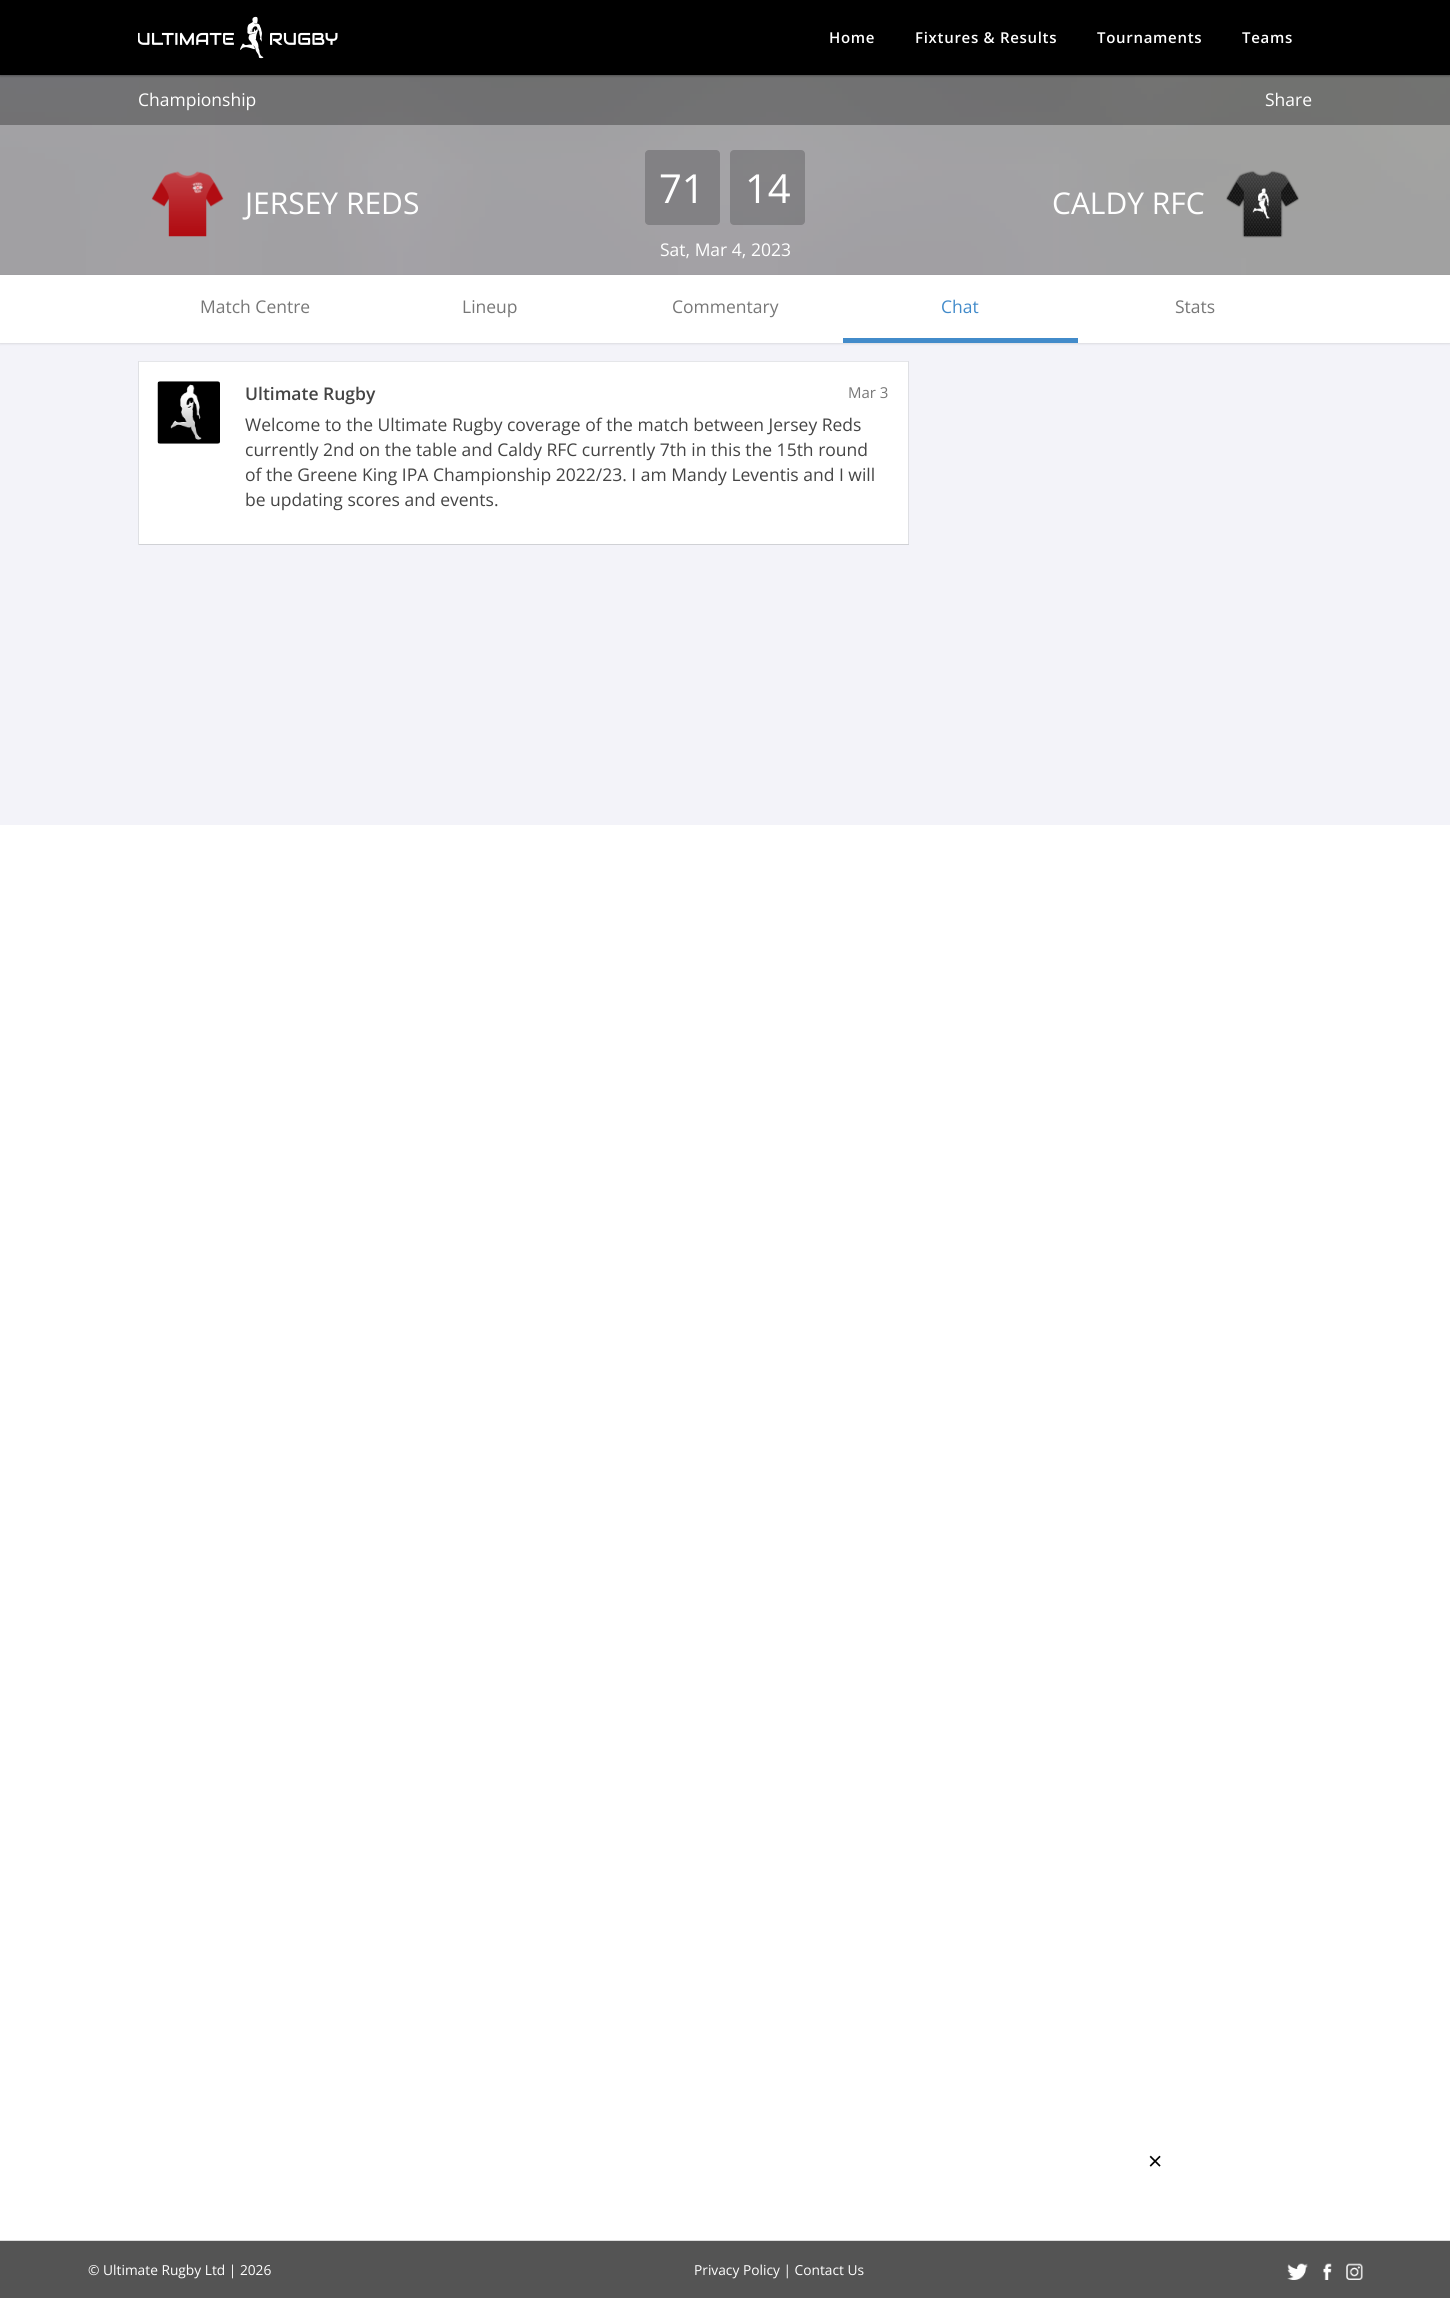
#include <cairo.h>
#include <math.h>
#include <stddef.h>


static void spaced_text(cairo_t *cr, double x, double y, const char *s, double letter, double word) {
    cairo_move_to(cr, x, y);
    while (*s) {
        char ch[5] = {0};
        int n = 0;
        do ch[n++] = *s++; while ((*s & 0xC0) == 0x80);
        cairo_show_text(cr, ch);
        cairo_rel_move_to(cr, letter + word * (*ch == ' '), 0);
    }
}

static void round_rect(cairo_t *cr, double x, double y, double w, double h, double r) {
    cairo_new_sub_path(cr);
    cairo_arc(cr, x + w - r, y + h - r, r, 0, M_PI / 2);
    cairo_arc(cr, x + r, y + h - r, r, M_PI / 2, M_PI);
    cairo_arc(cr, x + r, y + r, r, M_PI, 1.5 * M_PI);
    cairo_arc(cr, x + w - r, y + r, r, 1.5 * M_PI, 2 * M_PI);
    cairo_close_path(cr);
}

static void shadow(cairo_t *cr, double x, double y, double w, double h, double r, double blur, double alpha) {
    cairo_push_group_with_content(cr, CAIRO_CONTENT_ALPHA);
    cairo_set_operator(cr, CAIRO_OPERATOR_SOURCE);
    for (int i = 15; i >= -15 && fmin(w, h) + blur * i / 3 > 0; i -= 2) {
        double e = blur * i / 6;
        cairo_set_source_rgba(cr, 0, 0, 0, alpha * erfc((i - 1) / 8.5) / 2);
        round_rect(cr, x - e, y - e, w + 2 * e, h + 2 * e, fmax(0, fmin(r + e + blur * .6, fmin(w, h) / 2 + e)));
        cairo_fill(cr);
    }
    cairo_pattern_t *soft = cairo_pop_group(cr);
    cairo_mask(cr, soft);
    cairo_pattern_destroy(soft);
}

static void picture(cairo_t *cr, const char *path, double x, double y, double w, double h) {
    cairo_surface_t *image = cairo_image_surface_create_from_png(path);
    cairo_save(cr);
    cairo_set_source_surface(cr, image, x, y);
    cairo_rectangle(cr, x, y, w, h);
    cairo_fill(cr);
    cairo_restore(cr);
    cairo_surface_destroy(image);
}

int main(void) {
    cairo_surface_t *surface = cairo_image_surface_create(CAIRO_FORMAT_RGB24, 1450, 2298);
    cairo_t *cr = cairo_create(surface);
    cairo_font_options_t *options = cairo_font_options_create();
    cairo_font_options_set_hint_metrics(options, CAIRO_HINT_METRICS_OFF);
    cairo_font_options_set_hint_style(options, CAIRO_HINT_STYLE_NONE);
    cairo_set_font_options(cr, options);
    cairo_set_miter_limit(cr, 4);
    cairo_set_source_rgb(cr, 1, 1, 1);
    cairo_paint(cr);
    cairo_set_source_rgb(cr, 0.133, 0.133, 0.133);
    cairo_rectangle(cr, 0, 75, 1450, 200);
    cairo_fill(cr);
    picture(cr, "img2.png", 0, 75, 1450, 200);
    cairo_set_source_rgba(cr, 0, 0, 0, 0.3);
    cairo_rectangle(cr, 0, 75, 1450, 50);
    cairo_fill(cr);
    cairo_set_source_rgb(cr, 0, 0, 0);
    shadow(cr, 0, 1, 1450, 75, 0, 1, 0.3);
    cairo_set_source_rgb(cr, 0, 0, 0);
    cairo_rectangle(cr, 0, 0, 1450, 75);
    cairo_fill(cr);
    picture(cr, "img1.png", 138, 16, 200, 43);
    cairo_select_font_face(cr, "Open Sans SemiBold", CAIRO_FONT_SLANT_NORMAL, CAIRO_FONT_WEIGHT_NORMAL);
    cairo_set_font_size(cr, 15);
    cairo_set_source_rgb(cr, 1, 1, 1);
    spaced_text(cr, 829, 43, "Home", 0.7, 0);
    spaced_text(cr, 915, 43, "Fixtures & Results", 0.7, 0);
    spaced_text(cr, 1097, 43, "Tournaments", 0.7, 0);
    spaced_text(cr, 1242, 43, "Teams", 0.7, 0);
    cairo_set_source_rgb(cr, 0.953, 0.953, 0.973);
    cairo_rectangle(cr, 0, 343, 1450, 482);
    cairo_fill(cr);
    cairo_select_font_face(cr, "Open Sans", CAIRO_FONT_SLANT_NORMAL, CAIRO_FONT_WEIGHT_NORMAL);
    cairo_set_font_size(cr, 17.5);
    cairo_set_source_rgb(cr, 1, 1, 1);
    cairo_move_to(cr, 138, 106);
    cairo_show_text(cr, "Championship");
    cairo_move_to(cr, 1265, 106);
    cairo_show_text(cr, "Share");
    picture(cr, "img3.png", 151, 171, 73, 66);
    cairo_set_font_size(cr, 30);
    cairo_move_to(cr, 245, 214);
    cairo_show_text(cr, "JERSEY REDS");
    cairo_set_source_rgb(cr, 0.51, 0.506, 0.518);
    round_rect(cr, 645, 150, 75, 75, 4);
    cairo_fill(cr);
    cairo_set_font_size(cr, 40);
    cairo_set_source_rgb(cr, 1, 1, 1);
    cairo_move_to(cr, 659, 203);
    cairo_show_text(cr, "71");
    cairo_set_source_rgba(cr, 0, 0, 0, 0.2);
    round_rect(cr, 730, 150, 75, 75, 4);
    cairo_fill(cr);
    cairo_set_source_rgb(cr, 1, 1, 1);
    cairo_move_to(cr, 745, 203);
    cairo_show_text(cr, "14");
    cairo_set_font_size(cr, 17.5);
    cairo_move_to(cr, 660, 256);
    cairo_show_text(cr, "Sat, Mar 4, 2023");
    cairo_set_font_size(cr, 30);
    cairo_move_to(cr, 1052, 214);
    cairo_show_text(cr, "CALDY RFC");
    picture(cr, "img4.png", 1226, 170, 73, 68);
    cairo_set_source_rgb(cr, 0, 0, 0);
    shadow(cr, 0, 276, 1450, 68, 0, 1, 0.1);
    cairo_set_source_rgb(cr, 1, 1, 1);
    cairo_rectangle(cr, 0, 275, 1450, 68);
    cairo_fill(cr);
    cairo_set_font_size(cr, 17.5);
    cairo_set_source_rgb(cr, 0.467, 0.467, 0.467);
    cairo_move_to(cr, 200, 313);
    cairo_show_text(cr, "Match Centre");
    cairo_move_to(cr, 462, 313);
    cairo_show_text(cr, "Lineup");
    cairo_move_to(cr, 672, 313);
    cairo_show_text(cr, "Commentary");
    cairo_set_source_rgb(cr, 0.259, 0.545, 0.792);
    cairo_rectangle(cr, 843, 338, 235, 5);
    cairo_fill(cr);
    cairo_move_to(cr, 941, 313);
    cairo_show_text(cr, "Chat");
    cairo_set_source_rgb(cr, 0.467, 0.467, 0.467);
    cairo_move_to(cr, 1175, 313);
    cairo_show_text(cr, "Stats");
    cairo_set_source_rgb(cr, 1, 1, 1);
    cairo_rectangle(cr, 139, 362, 769, 182);
    cairo_fill(cr);
    cairo_set_source_rgb(cr, 0.898, 0.902, 0.914);
    cairo_rectangle(cr, 138, 361, 771, 1);
    cairo_fill(cr);
    cairo_set_source_rgb(cr, 0.875, 0.878, 0.894);
    cairo_rectangle(cr, 908, 361, 1, 184);
    cairo_fill(cr);
    cairo_set_source_rgb(cr, 0.816, 0.82, 0.835);
    cairo_rectangle(cr, 138, 544, 771, 1);
    cairo_fill(cr);
    cairo_set_source_rgb(cr, 0.875, 0.878, 0.894);
    cairo_rectangle(cr, 138, 361, 1, 184);
    cairo_fill(cr);
    picture(cr, "img5.png", 157, 381, 63, 63);
    cairo_select_font_face(cr, "Open Sans SemiBold", CAIRO_FONT_SLANT_NORMAL, CAIRO_FONT_WEIGHT_NORMAL);
    cairo_set_source_rgb(cr, 0.267, 0.267, 0.267);
    cairo_move_to(cr, 245, 400);
    cairo_show_text(cr, "Ultimate Rugby");
    cairo_select_font_face(cr, "Open Sans", CAIRO_FONT_SLANT_NORMAL, CAIRO_FONT_WEIGHT_NORMAL);
    cairo_set_font_size(cr, 15);
    cairo_set_source_rgb(cr, 0.467, 0.467, 0.467);
    cairo_move_to(cr, 848, 398);
    cairo_show_text(cr, "Mar 3");
    cairo_set_font_size(cr, 17.5);
    cairo_set_source_rgb(cr, 0.267, 0.267, 0.267);
    cairo_move_to(cr, 245, 431);
    cairo_show_text(cr, "Welcome to the Ultimate Rugby coverage of the match between Jersey Reds");
    cairo_move_to(cr, 245, 456);
    cairo_show_text(cr, "currently 2nd on the table and Caldy RFC currently 7th in this the 15th round");
    cairo_move_to(cr, 245, 481);
    cairo_show_text(cr, "of the Greene King IPA Championship 2022/23. I am Mandy Leventis and I will");
    cairo_move_to(cr, 245, 506);
    cairo_show_text(cr, "be updating scores and events.");
    cairo_set_font_size(cr, 25);
    cairo_set_source_rgb(cr, 0, 0, 0);
    cairo_move_to(cr, 1148, 2170);
    cairo_show_text(cr, "×");
    cairo_set_source_rgb(cr, 0.329, 0.329, 0.329);
    cairo_rectangle(cr, 0, 2241, 1450, 57);
    cairo_fill(cr);
    cairo_set_source_rgb(cr, 0.867, 0.867, 0.867);
    cairo_rectangle(cr, 0, 2240, 1450, 1);
    cairo_fill(cr);
    cairo_set_font_size(cr, 13.75);
    cairo_set_source_rgb(cr, 1, 1, 1);
    cairo_move_to(cr, 88, 2275);
    cairo_show_text(cr, "© Ultimate Rugby Ltd | 2026");
    cairo_move_to(cr, 694, 2275);
    cairo_show_text(cr, "Privacy Policy | Contact Us");
    picture(cr, "img6.png", 1287, 2263, 21, 17);
    picture(cr, "img7.png", 1323, 2263, 9, 17);
    picture(cr, "img8.png", 1346, 2263, 17, 17);
    cairo_surface_write_to_png(surface, "page.png");
    cairo_font_options_destroy(options);
    cairo_destroy(cr);
    cairo_surface_destroy(surface);
    return 0;
}
